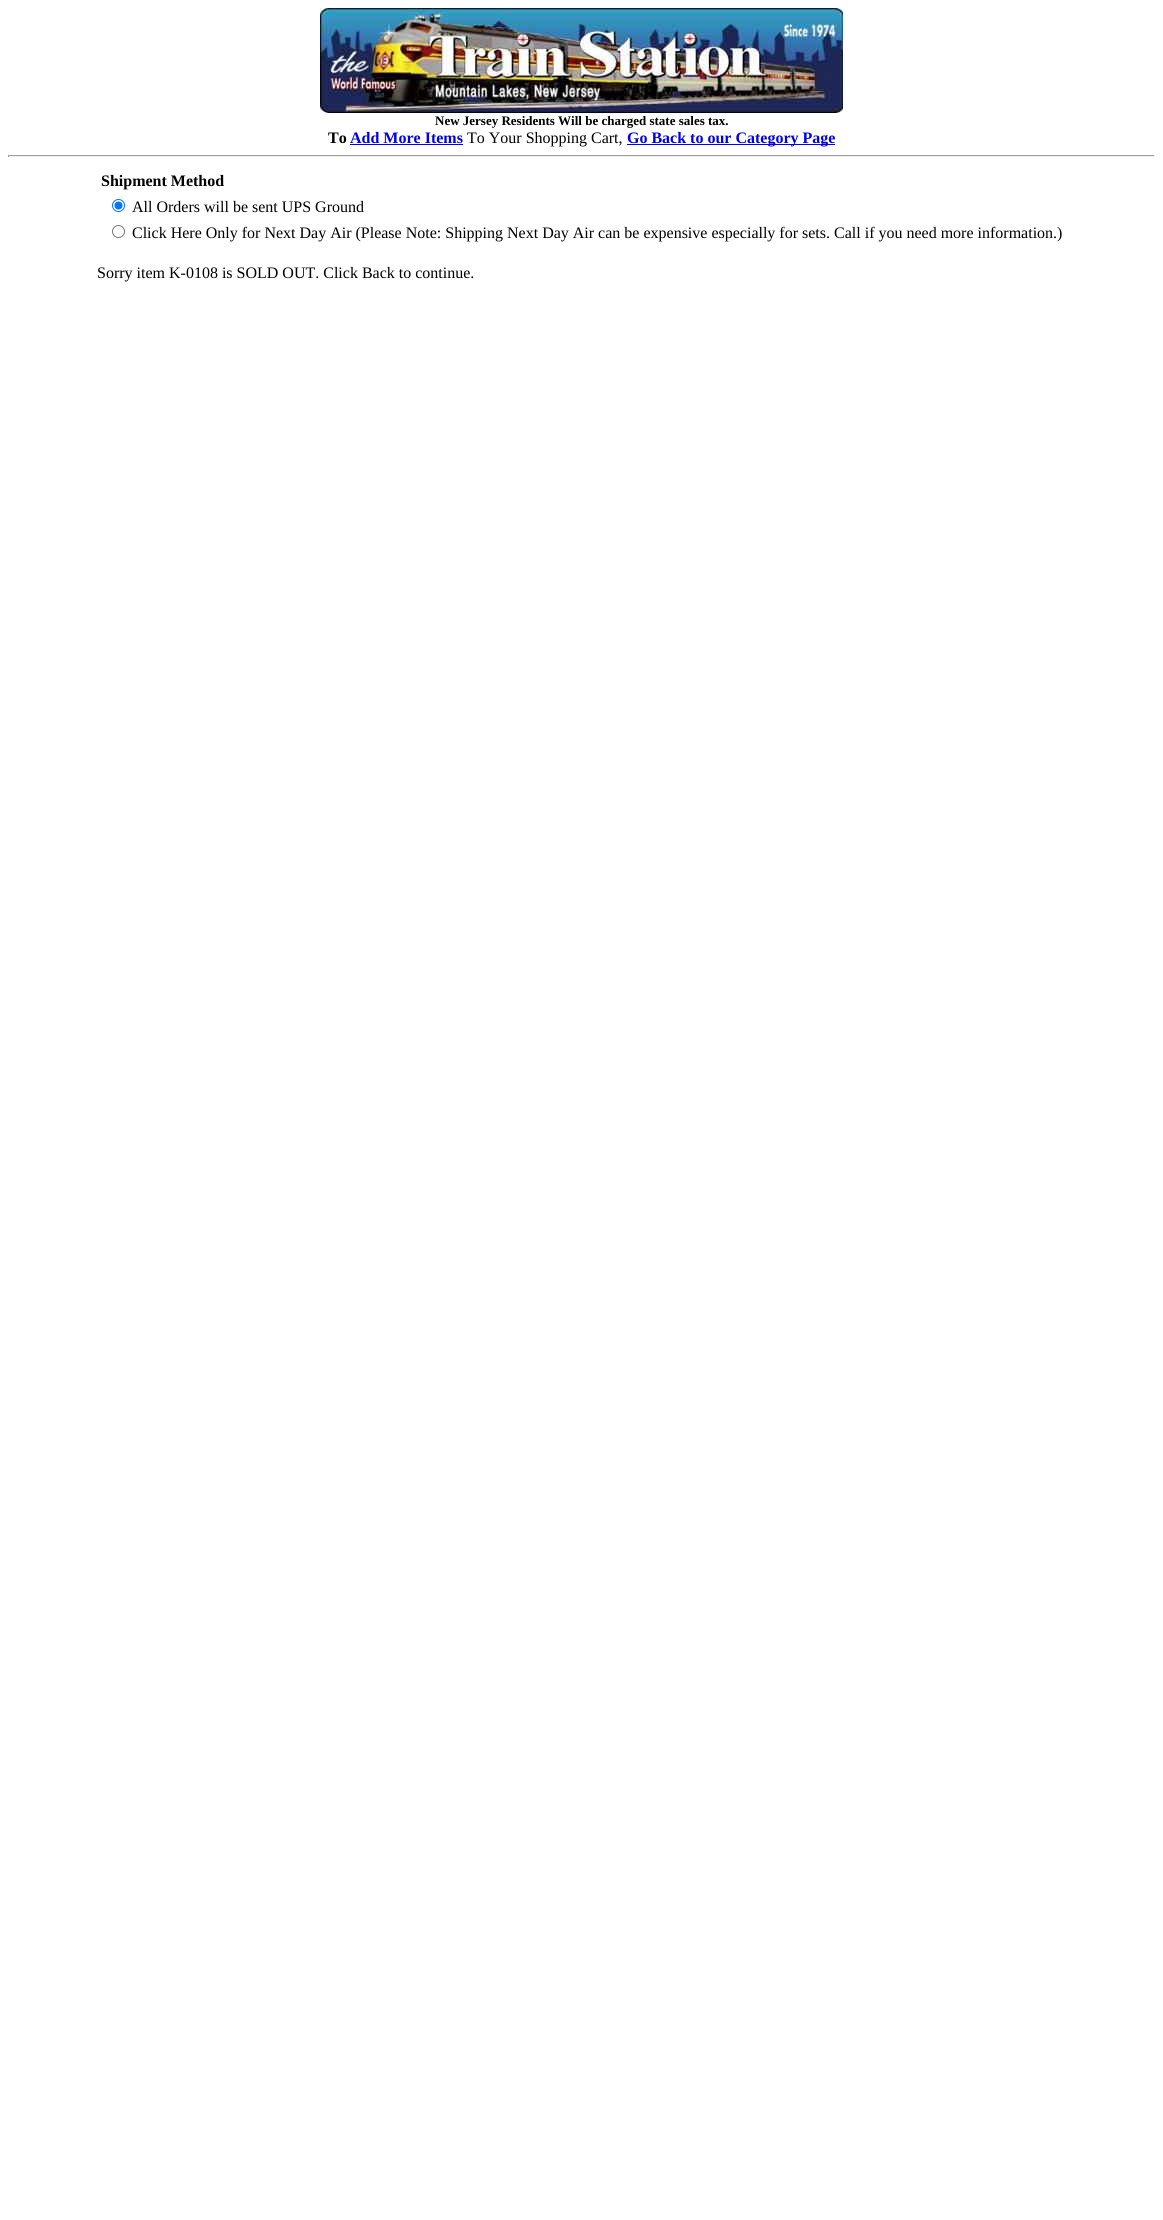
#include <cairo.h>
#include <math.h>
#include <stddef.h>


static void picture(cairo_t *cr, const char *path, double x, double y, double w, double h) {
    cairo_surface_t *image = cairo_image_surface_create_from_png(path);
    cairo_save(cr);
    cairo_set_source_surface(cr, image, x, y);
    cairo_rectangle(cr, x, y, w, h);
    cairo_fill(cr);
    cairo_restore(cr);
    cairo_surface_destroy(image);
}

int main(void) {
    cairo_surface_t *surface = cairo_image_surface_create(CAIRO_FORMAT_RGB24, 1163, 2220);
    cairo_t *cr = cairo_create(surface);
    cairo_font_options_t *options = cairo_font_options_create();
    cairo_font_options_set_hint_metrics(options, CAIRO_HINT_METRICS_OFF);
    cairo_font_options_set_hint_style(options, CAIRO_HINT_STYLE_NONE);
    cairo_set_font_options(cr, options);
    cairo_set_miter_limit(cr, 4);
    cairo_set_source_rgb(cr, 1, 1, 1);
    cairo_paint(cr);
    picture(cr, "img1.png", 320, 8, 523, 105);
    cairo_select_font_face(cr, "Liberation Serif", CAIRO_FONT_SLANT_NORMAL, CAIRO_FONT_WEIGHT_BOLD);
    cairo_set_font_size(cr, 13);
    cairo_set_source_rgb(cr, 0, 0, 0);
    cairo_move_to(cr, 435, 125);
    cairo_show_text(cr, "New Jersey Residents Will be charged state sales tax.");
    cairo_set_font_size(cr, 16);
    cairo_move_to(cr, 328, 143);
    cairo_show_text(cr, "To");
    cairo_set_source_rgb(cr, 0, 0, 0.933);
    cairo_move_to(cr, 350, 143);
    cairo_show_text(cr, "Add More Items");
    cairo_rectangle(cr, 350, 144, 113, 1);
    cairo_fill(cr);
    cairo_select_font_face(cr, "Liberation Serif", CAIRO_FONT_SLANT_NORMAL, CAIRO_FONT_WEIGHT_NORMAL);
    cairo_set_source_rgb(cr, 0, 0, 0);
    cairo_move_to(cr, 467, 143);
    cairo_show_text(cr, "To Your Shopping Cart,");
    cairo_set_source_rgb(cr, 0, 0, 0.933);
    cairo_rectangle(cr, 627, 144, 208, 1);
    cairo_fill(cr);
    cairo_select_font_face(cr, "Liberation Serif", CAIRO_FONT_SLANT_NORMAL, CAIRO_FONT_WEIGHT_BOLD);
    cairo_move_to(cr, 627, 143);
    cairo_show_text(cr, "Go Back to our Category Page");
    cairo_set_source_rgb(cr, 0.624, 0.624, 0.624);
    cairo_rectangle(cr, 8, 155, 1147, 1);
    cairo_fill(cr);
    cairo_set_source_rgb(cr, 0.933, 0.933, 0.933);
    cairo_rectangle(cr, 1154, 155, 1, 2);
    cairo_fill(cr);
    cairo_rectangle(cr, 8, 156, 1147, 1);
    cairo_fill(cr);
    cairo_set_source_rgb(cr, 0.624, 0.624, 0.624);
    cairo_rectangle(cr, 8, 155, 1, 2);
    cairo_fill(cr);
    cairo_set_source_rgb(cr, 0, 0, 0);
    cairo_move_to(cr, 101, 186);
    cairo_show_text(cr, "Shipment Method");
    cairo_new_path(cr);
    cairo_arc(cr, 118.5, 205.5, 6, 0, 2 * M_PI);
    cairo_set_source_rgb(cr, 0, 0.459, 1);
    cairo_set_line_width(cr, 1);
    cairo_stroke(cr);
    cairo_arc(cr, 118.5, 205.5, 4, 0, 2 * M_PI);
    cairo_fill(cr);
    cairo_select_font_face(cr, "Liberation Serif", CAIRO_FONT_SLANT_NORMAL, CAIRO_FONT_WEIGHT_NORMAL);
    cairo_set_source_rgb(cr, 0, 0, 0);
    cairo_move_to(cr, 132, 212);
    cairo_show_text(cr, "All Orders will be sent UPS Ground");
    cairo_new_path(cr);
    cairo_arc(cr, 118.5, 231.5, 6, 0, 2 * M_PI);
    cairo_set_source_rgb(cr, 0.463, 0.463, 0.463);
    cairo_stroke(cr);
    cairo_set_source_rgb(cr, 0, 0, 0);
    cairo_move_to(cr, 132, 238);
    cairo_show_text(cr, "Click Here Only for Next Day Air (Please Note: Shipping Next Day Air can be expensive especially for sets. Call if you need more information.)");
    cairo_move_to(cr, 97, 278);
    cairo_show_text(cr, "Sorry item K-0108 is SOLD OUT. Click Back to continue.");
    cairo_surface_write_to_png(surface, "page.png");
    cairo_font_options_destroy(options);
    cairo_destroy(cr);
    cairo_surface_destroy(surface);
    return 0;
}
